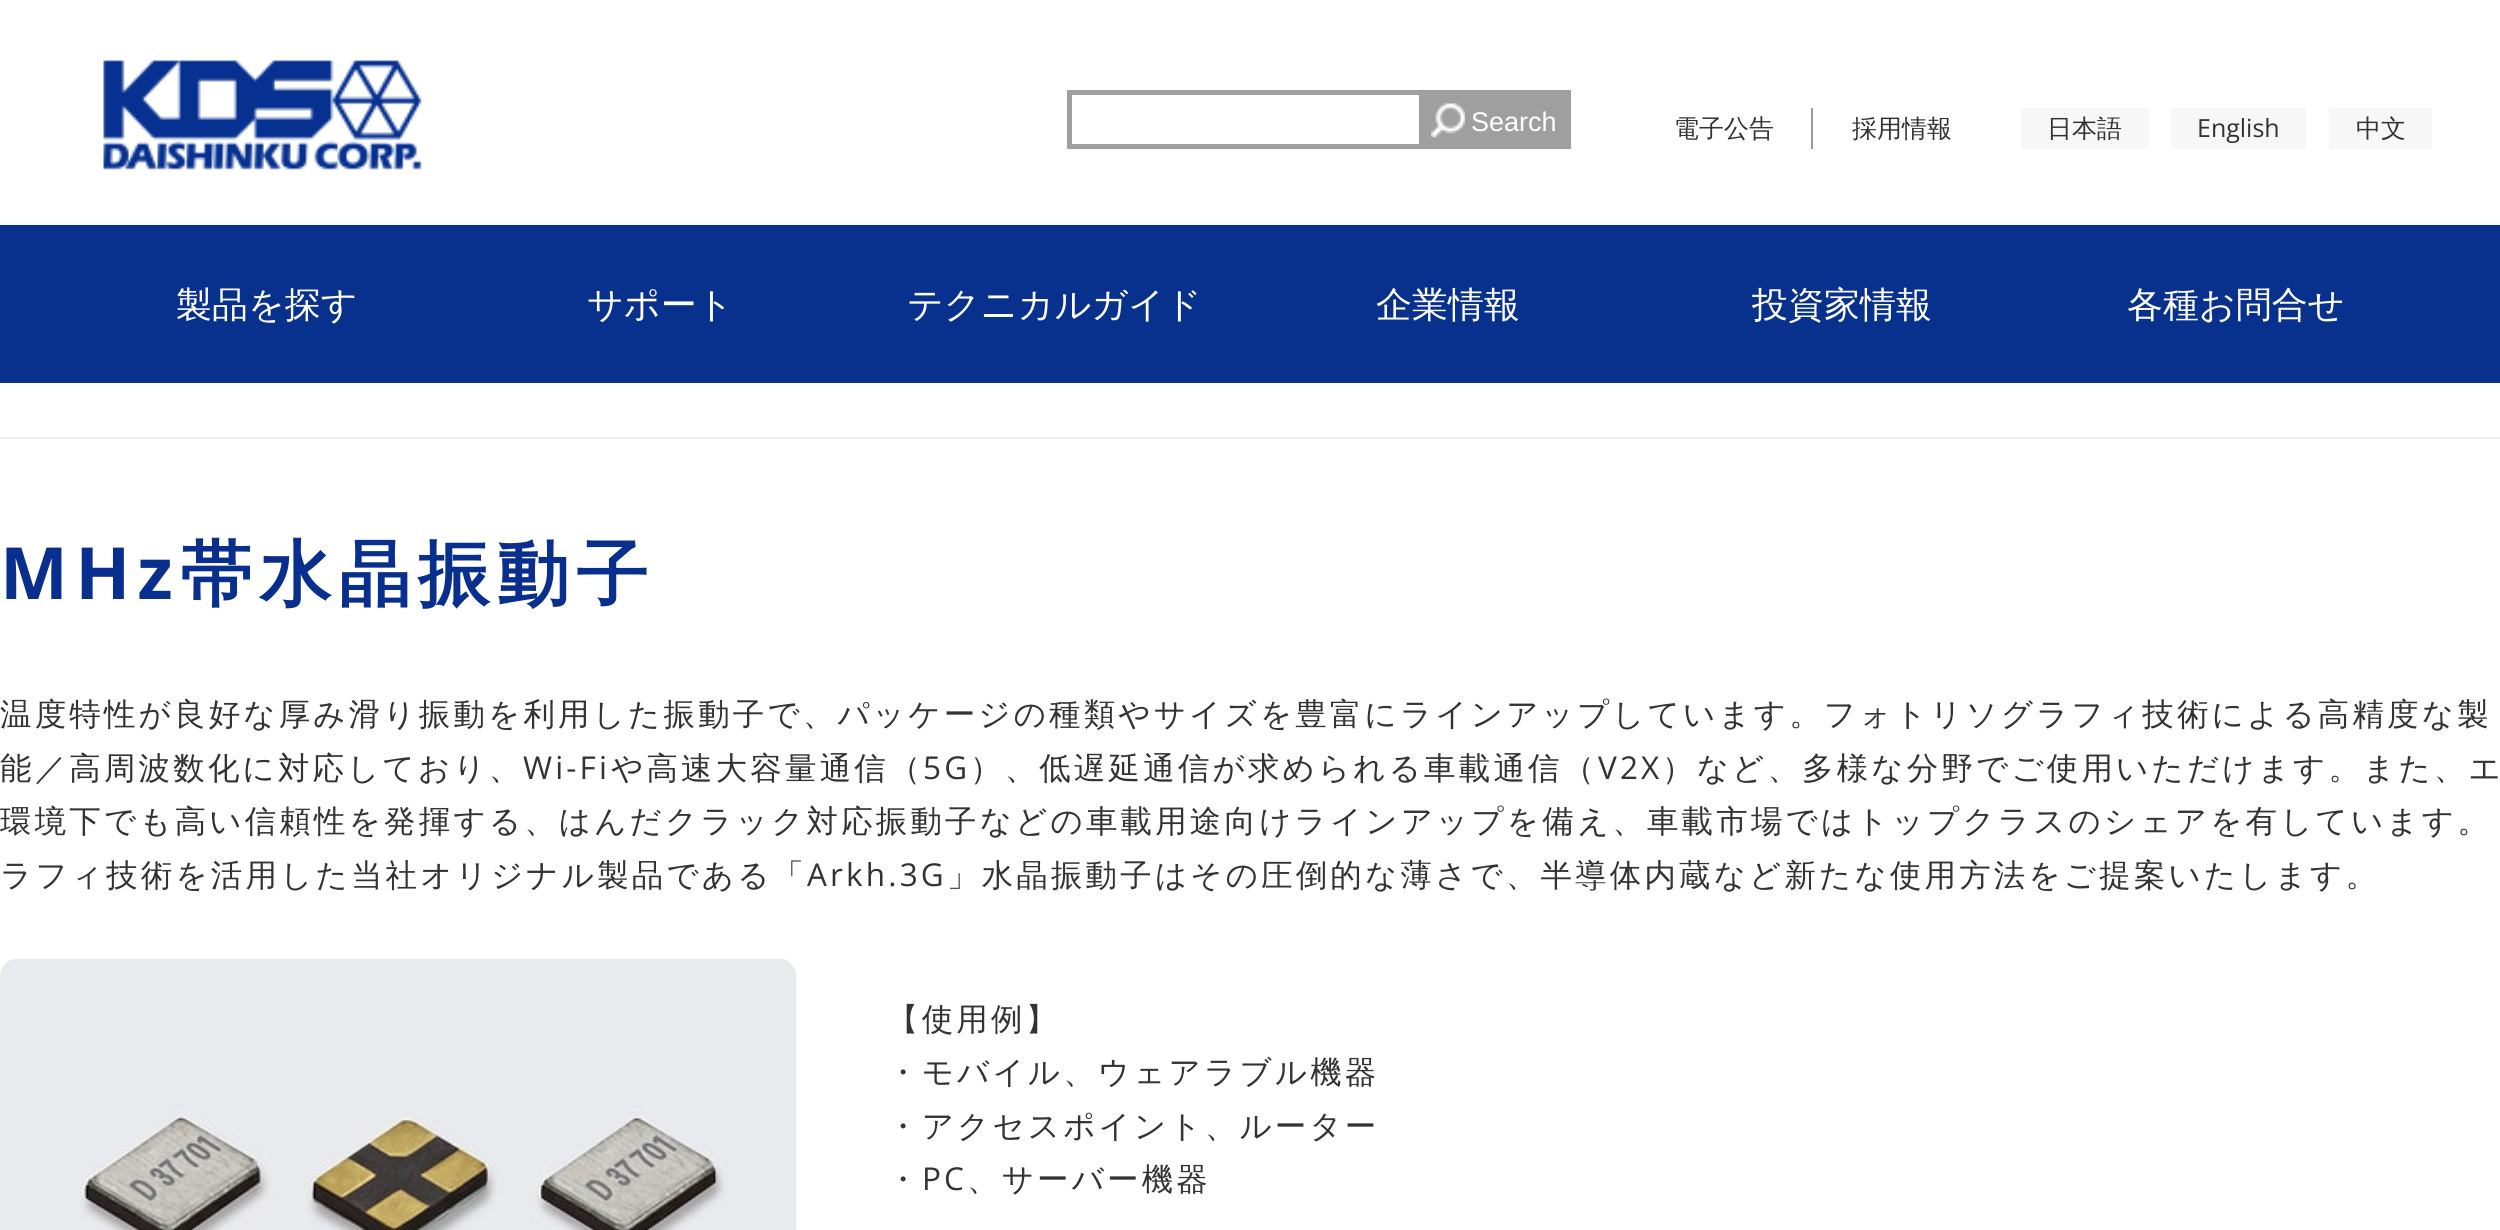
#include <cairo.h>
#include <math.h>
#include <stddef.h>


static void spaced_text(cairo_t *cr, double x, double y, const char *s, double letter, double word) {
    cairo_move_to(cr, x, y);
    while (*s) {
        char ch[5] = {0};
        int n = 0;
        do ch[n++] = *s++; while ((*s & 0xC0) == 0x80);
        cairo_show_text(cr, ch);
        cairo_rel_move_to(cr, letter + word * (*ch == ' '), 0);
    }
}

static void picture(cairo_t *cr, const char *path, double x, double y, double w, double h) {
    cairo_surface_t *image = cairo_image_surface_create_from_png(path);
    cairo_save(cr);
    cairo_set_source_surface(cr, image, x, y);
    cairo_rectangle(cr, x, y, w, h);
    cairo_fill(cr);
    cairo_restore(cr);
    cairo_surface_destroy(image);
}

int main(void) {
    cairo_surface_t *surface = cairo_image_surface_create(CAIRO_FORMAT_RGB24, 2500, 1230);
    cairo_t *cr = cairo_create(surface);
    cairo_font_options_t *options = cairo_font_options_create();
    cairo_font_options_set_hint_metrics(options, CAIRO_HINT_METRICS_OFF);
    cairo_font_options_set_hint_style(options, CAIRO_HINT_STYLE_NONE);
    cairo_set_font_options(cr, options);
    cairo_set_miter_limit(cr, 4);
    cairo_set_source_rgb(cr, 1, 1, 1);
    cairo_paint(cr);
    picture(cr, "img1.png", 103, 60, 319, 110);
    cairo_rectangle(cr, 1069.5, 92.5, 352, 54);
    cairo_set_source_rgb(cr, 0.624, 0.624, 0.624);
    cairo_set_line_width(cr, 5);
    cairo_stroke(cr);
    cairo_rectangle(cr, 1424, 90, 147, 59);
    cairo_fill(cr);
    picture(cr, "img2.png", 1431, 103, 34, 35);
    cairo_select_font_face(cr, "Liberation Sans", CAIRO_FONT_SLANT_NORMAL, CAIRO_FONT_WEIGHT_NORMAL);
    cairo_set_font_size(cr, 27);
    cairo_set_source_rgb(cr, 1, 1, 1);
    cairo_move_to(cr, 1471, 131);
    cairo_show_text(cr, "Search");
    cairo_select_font_face(cr, "WenQuanYi Zen Hei Medium", CAIRO_FONT_SLANT_NORMAL, CAIRO_FONT_WEIGHT_NORMAL);
    cairo_set_font_size(cr, 25);
    cairo_set_source_rgb(cr, 0.2, 0.2, 0.2);
    cairo_move_to(cr, 1674, 137);
    cairo_show_text(cr, "電子公告");
    cairo_set_source_rgb(cr, 0.62, 0.604, 0.6);
    cairo_rectangle(cr, 1811, 108, 2, 41);
    cairo_fill(cr);
    cairo_set_source_rgb(cr, 0.2, 0.2, 0.2);
    cairo_move_to(cr, 1852, 137);
    cairo_show_text(cr, "採用情報");
    cairo_set_source_rgb(cr, 0.965, 0.965, 0.965);
    cairo_rectangle(cr, 2021, 108, 128, 41);
    cairo_fill(cr);
    cairo_set_source_rgb(cr, 0.2, 0.2, 0.2);
    cairo_move_to(cr, 2047, 137);
    cairo_show_text(cr, "日本語");
    cairo_set_source_rgb(cr, 0.965, 0.965, 0.965);
    cairo_rectangle(cr, 2171, 108, 135, 41);
    cairo_fill(cr);
    cairo_select_font_face(cr, "Open Sans", CAIRO_FONT_SLANT_NORMAL, CAIRO_FONT_WEIGHT_NORMAL);
    cairo_set_source_rgb(cr, 0.2, 0.2, 0.2);
    cairo_move_to(cr, 2197, 137);
    cairo_show_text(cr, "English");
    cairo_set_source_rgb(cr, 0.965, 0.965, 0.965);
    cairo_rectangle(cr, 2329, 108, 103, 41);
    cairo_fill(cr);
    cairo_select_font_face(cr, "WenQuanYi Zen Hei Medium", CAIRO_FONT_SLANT_NORMAL, CAIRO_FONT_WEIGHT_NORMAL);
    cairo_set_source_rgb(cr, 0.2, 0.2, 0.2);
    cairo_move_to(cr, 2356, 137);
    cairo_show_text(cr, "中文");
    cairo_set_source_rgb(cr, 0.035, 0.188, 0.553);
    cairo_rectangle(cr, 0, 225, 2500, 158);
    cairo_fill(cr);
    cairo_set_font_size(cr, 36);
    cairo_set_source_rgb(cr, 1, 1, 1);
    cairo_move_to(cr, 176, 317);
    cairo_show_text(cr, "製品を探す");
    cairo_move_to(cr, 587, 317);
    cairo_show_text(cr, "サポート");
    cairo_move_to(cr, 907, 317);
    cairo_show_text(cr, "テクニカルガイド");
    cairo_move_to(cr, 1376, 317);
    cairo_show_text(cr, "企業情報");
    cairo_move_to(cr, 1752, 317);
    cairo_show_text(cr, "投資家情報");
    cairo_move_to(cr, 2127, 317);
    cairo_show_text(cr, "各種お問合せ");
    cairo_set_source_rgb(cr, 0.933, 0.933, 0.933);
    cairo_rectangle(cr, 0, 437, 2500, 2);
    cairo_fill(cr);
    cairo_select_font_face(cr, "Open Sans", CAIRO_FONT_SLANT_NORMAL, CAIRO_FONT_WEIGHT_BOLD);
    cairo_set_font_size(cr, 72);
    cairo_set_source_rgb(cr, 0.035, 0.184, 0.553);
    spaced_text(cr, 0, 599, "MHz", 7.25, 0);
    cairo_select_font_face(cr, "WenQuanYi Zen Hei", CAIRO_FONT_SLANT_NORMAL, CAIRO_FONT_WEIGHT_BOLD);
    spaced_text(cr, 180, 599, "帯水晶振動子", 7.25, 0);
    cairo_select_font_face(cr, "WenQuanYi Zen Hei Medium", CAIRO_FONT_SLANT_NORMAL, CAIRO_FONT_WEIGHT_NORMAL);
    cairo_set_font_size(cr, 31.5);
    cairo_set_source_rgb(cr, 0.2, 0.2, 0.2);
    spaced_text(cr, 0, 725, "温度特性が良好な厚み滑り振動を利用した振動子で、パッケージの種類やサイズを豊富にラインアップしています。フォトリソグラフィ技術による高精度な製", 3.15, 0);
    spaced_text(cr, 0, 779, "能／高周波数化に対応しており、", 3.15, 0);
    cairo_select_font_face(cr, "Open Sans", CAIRO_FONT_SLANT_NORMAL, CAIRO_FONT_WEIGHT_NORMAL);
    spaced_text(cr, 523, 779, "Wi-Fi", 3.15, 0);
    cairo_select_font_face(cr, "WenQuanYi Zen Hei Medium", CAIRO_FONT_SLANT_NORMAL, CAIRO_FONT_WEIGHT_NORMAL);
    spaced_text(cr, 611, 779, "や高速大容量通信（", 3.15, 0);
    cairo_select_font_face(cr, "Open Sans", CAIRO_FONT_SLANT_NORMAL, CAIRO_FONT_WEIGHT_NORMAL);
    spaced_text(cr, 923, 779, "5G", 3.15, 0);
    cairo_select_font_face(cr, "WenQuanYi Zen Hei Medium", CAIRO_FONT_SLANT_NORMAL, CAIRO_FONT_WEIGHT_NORMAL);
    spaced_text(cr, 970, 779, "）、低遅延通信が求められる車載通信（", 3.15, 0);
    cairo_select_font_face(cr, "Open Sans", CAIRO_FONT_SLANT_NORMAL, CAIRO_FONT_WEIGHT_NORMAL);
    spaced_text(cr, 1598, 779, "V2X", 3.15, 0);
    cairo_select_font_face(cr, "WenQuanYi Zen Hei Medium", CAIRO_FONT_SLANT_NORMAL, CAIRO_FONT_WEIGHT_NORMAL);
    spaced_text(cr, 1662, 779, "）など、多様な分野でご使用いただけます。また、エ", 3.15, 0);
    spaced_text(cr, 0, 832, "環境下でも高い信頼性を発揮する、はんだクラック対応振動子などの車載用途向けラインアップを備え、車載市場ではトップクラスのシェアを有しています。", 3.15, 0);
    spaced_text(cr, 0, 886, "ラフィ技術を活用した当社オリジナル製品である「", 3.15, 0);
    cairo_select_font_face(cr, "Open Sans", CAIRO_FONT_SLANT_NORMAL, CAIRO_FONT_WEIGHT_NORMAL);
    spaced_text(cr, 807, 886, "Arkh.3G", 3.15, 0);
    cairo_select_font_face(cr, "WenQuanYi Zen Hei Medium", CAIRO_FONT_SLANT_NORMAL, CAIRO_FONT_WEIGHT_NORMAL);
    spaced_text(cr, 947, 886, "」水晶振動子はその圧倒的な薄さで、半導体内蔵など新たな使用方法をご提案いたします。", 3.15, 0);
    picture(cr, "img3.png", 0, 958, 797, 272);
    spaced_text(cr, 887, 1030, "【使用例】", 3.15, 0);
    spaced_text(cr, 887, 1083, "・モバイル、ウェアラブル機器", 3.15, 0);
    spaced_text(cr, 887, 1137, "・アクセスポイント、ルーター", 3.15, 0);
    spaced_text(cr, 887, 1190, "・", 3.15, 0);
    cairo_select_font_face(cr, "Open Sans", CAIRO_FONT_SLANT_NORMAL, CAIRO_FONT_WEIGHT_NORMAL);
    spaced_text(cr, 922, 1190, "PC", 3.15, 0);
    cairo_select_font_face(cr, "WenQuanYi Zen Hei Medium", CAIRO_FONT_SLANT_NORMAL, CAIRO_FONT_WEIGHT_NORMAL);
    spaced_text(cr, 967, 1190, "、サーバー機器", 3.15, 0);
    cairo_surface_write_to_png(surface, "page.png");
    cairo_font_options_destroy(options);
    cairo_destroy(cr);
    cairo_surface_destroy(surface);
    return 0;
}
